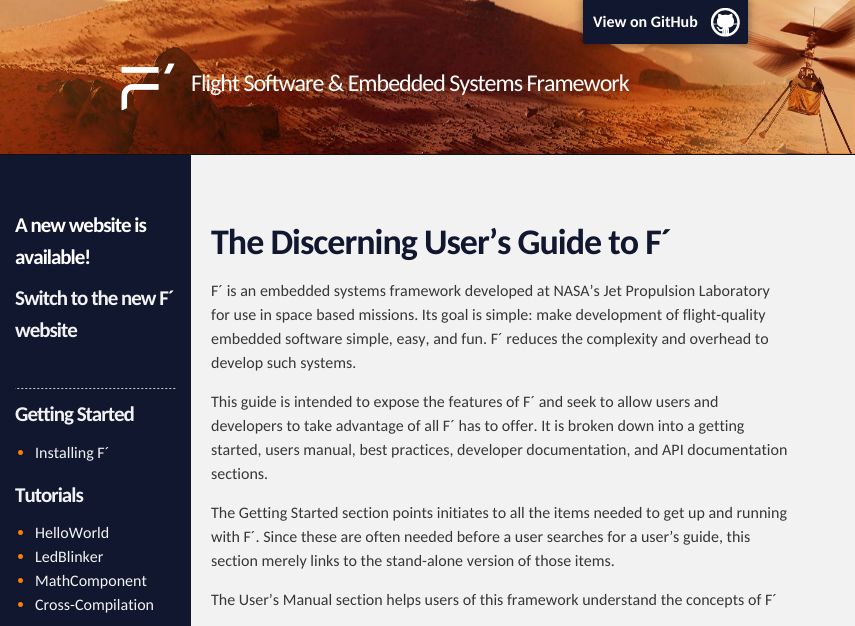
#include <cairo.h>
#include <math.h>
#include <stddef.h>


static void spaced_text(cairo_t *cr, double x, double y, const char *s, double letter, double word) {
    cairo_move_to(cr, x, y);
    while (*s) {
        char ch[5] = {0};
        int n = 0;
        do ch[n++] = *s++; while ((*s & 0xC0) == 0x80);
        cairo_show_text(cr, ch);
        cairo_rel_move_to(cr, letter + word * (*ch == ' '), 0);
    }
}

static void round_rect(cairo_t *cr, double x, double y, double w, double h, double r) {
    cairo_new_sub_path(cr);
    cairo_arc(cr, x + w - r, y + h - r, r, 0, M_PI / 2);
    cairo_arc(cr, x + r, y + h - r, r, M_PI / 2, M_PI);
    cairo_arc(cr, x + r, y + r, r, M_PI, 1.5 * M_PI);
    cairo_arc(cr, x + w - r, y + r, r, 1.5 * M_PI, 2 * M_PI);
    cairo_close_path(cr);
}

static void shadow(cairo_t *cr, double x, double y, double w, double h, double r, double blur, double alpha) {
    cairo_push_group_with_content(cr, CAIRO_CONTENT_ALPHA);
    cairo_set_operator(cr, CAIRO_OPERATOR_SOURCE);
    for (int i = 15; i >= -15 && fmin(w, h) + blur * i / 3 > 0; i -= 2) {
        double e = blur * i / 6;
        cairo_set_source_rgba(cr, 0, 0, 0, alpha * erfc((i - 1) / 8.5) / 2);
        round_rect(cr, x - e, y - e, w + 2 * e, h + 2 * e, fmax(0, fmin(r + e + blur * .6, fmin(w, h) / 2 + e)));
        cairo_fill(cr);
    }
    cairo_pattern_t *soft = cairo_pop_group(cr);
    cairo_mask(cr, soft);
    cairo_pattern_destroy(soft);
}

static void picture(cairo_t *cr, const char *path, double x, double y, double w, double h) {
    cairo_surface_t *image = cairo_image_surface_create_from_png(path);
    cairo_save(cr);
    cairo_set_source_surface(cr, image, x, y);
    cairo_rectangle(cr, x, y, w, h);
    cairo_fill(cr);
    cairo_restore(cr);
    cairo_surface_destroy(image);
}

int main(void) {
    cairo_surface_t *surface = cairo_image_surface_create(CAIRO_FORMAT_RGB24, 855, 626);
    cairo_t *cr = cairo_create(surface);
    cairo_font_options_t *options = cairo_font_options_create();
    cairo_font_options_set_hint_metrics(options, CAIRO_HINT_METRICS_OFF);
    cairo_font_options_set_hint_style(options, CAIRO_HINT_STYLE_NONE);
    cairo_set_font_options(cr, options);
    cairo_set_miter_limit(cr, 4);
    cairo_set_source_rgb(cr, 1, 1, 1);
    cairo_paint(cr);
    picture(cr, "img1.png", 0, 0, 855, 154);
    cairo_set_source_rgb(cr, 0, 0, 0);
    shadow(cr, 583, 0, 165, 44, 2, 5, 0.5);
    cairo_set_source_rgb(cr, 0.067, 0.09, 0.184);
    cairo_new_path(cr);
    cairo_move_to(cr, 583, 0);
    cairo_line_to(cr, 748, 0);
    cairo_line_to(cr, 748, 42);
    cairo_curve_to(cr, 748, 43, 747, 44, 746, 44);
    cairo_line_to(cr, 585, 44);
    cairo_curve_to(cr, 584, 44, 583, 43, 583, 42);
    cairo_close_path(cr);
    cairo_fill(cr);
    picture(cr, "img2.png", 711, 8, 29, 29);
    cairo_select_font_face(cr, "Carlito", CAIRO_FONT_SLANT_NORMAL, CAIRO_FONT_WEIGHT_BOLD);
    cairo_set_font_size(cr, 16);
    cairo_set_source_rgb(cr, 1, 1, 1);
    cairo_move_to(cr, 593, 27);
    cairo_show_text(cr, "View on GitHub");
    picture(cr, "img3.png", 121, 63, 54, 48);
    cairo_select_font_face(cr, "Carlito", CAIRO_FONT_SLANT_NORMAL, CAIRO_FONT_WEIGHT_NORMAL);
    cairo_set_font_size(cr, 24);
    spaced_text(cr, 191, 91, "Flight Software & Embedded Systems Framework", -1, 0);
    cairo_set_source_rgb(cr, 0.949, 0.949, 0.949);
    cairo_rectangle(cr, 191, 155, 664, 471);
    cairo_fill(cr);
    cairo_set_source_rgb(cr, 0.067, 0.067, 0.067);
    cairo_rectangle(cr, 0, 154, 855, 1);
    cairo_fill(cr);
    cairo_set_source_rgb(cr, 0.067, 0.09, 0.184);
    cairo_rectangle(cr, 0, 155, 191, 471);
    cairo_fill(cr);
    cairo_select_font_face(cr, "Carlito", CAIRO_FONT_SLANT_NORMAL, CAIRO_FONT_WEIGHT_BOLD);
    cairo_set_font_size(cr, 21);
    cairo_set_source_rgb(cr, 1, 1, 1);
    spaced_text(cr, 15, 232, "A new website is", -1, 0);
    spaced_text(cr, 15, 264, "available!", -1, 0);
    cairo_set_source_rgb(cr, 0.949, 0.949, 0.949);
    spaced_text(cr, 15, 305, "Switch to the new F´", -1, 0);
    spaced_text(cr, 15, 337, "website", -1, 0);
    picture(cr, "img4.png", 15, 388, 161, 1);
    spaced_text(cr, 15, 421, "Getting Started", -1, 0);
    cairo_set_source_rgb(cr, 0.988, 0.49, 0.035);
    cairo_new_path(cr);
    cairo_arc(cr, 20.5, 452.5, 2.5, 0, 2 * M_PI);
    cairo_fill(cr);
    cairo_select_font_face(cr, "Carlito", CAIRO_FONT_SLANT_NORMAL, CAIRO_FONT_WEIGHT_NORMAL);
    cairo_set_font_size(cr, 16);
    cairo_set_source_rgb(cr, 0.949, 0.949, 0.949);
    cairo_move_to(cr, 35, 458);
    cairo_show_text(cr, "Installing F´");
    cairo_select_font_face(cr, "Carlito", CAIRO_FONT_SLANT_NORMAL, CAIRO_FONT_WEIGHT_BOLD);
    cairo_set_font_size(cr, 21);
    spaced_text(cr, 15, 502, "Tutorials", -1, 0);
    cairo_set_source_rgb(cr, 0.988, 0.49, 0.035);
    cairo_new_path(cr);
    cairo_arc(cr, 20.5, 532.5, 2.5, 0, 2 * M_PI);
    cairo_fill(cr);
    cairo_select_font_face(cr, "Carlito", CAIRO_FONT_SLANT_NORMAL, CAIRO_FONT_WEIGHT_NORMAL);
    cairo_set_font_size(cr, 16);
    cairo_set_source_rgb(cr, 0.949, 0.949, 0.949);
    cairo_move_to(cr, 35, 538);
    cairo_show_text(cr, "HelloWorld");
    cairo_set_source_rgb(cr, 0.988, 0.49, 0.035);
    cairo_new_path(cr);
    cairo_arc(cr, 20.5, 556.5, 2.5, 0, 2 * M_PI);
    cairo_fill(cr);
    cairo_set_source_rgb(cr, 0.949, 0.949, 0.949);
    cairo_move_to(cr, 35, 562);
    cairo_show_text(cr, "LedBlinker");
    cairo_set_source_rgb(cr, 0.988, 0.49, 0.035);
    cairo_new_path(cr);
    cairo_arc(cr, 20.5, 580.5, 2.5, 0, 2 * M_PI);
    cairo_fill(cr);
    cairo_set_source_rgb(cr, 0.949, 0.949, 0.949);
    cairo_move_to(cr, 35, 586);
    cairo_show_text(cr, "MathComponent");
    cairo_set_source_rgb(cr, 0.988, 0.49, 0.035);
    cairo_new_path(cr);
    cairo_arc(cr, 20.5, 604.5, 2.5, 0, 2 * M_PI);
    cairo_fill(cr);
    cairo_set_source_rgb(cr, 0.949, 0.949, 0.949);
    cairo_move_to(cr, 35, 610);
    cairo_show_text(cr, "Cross-Compilation");
    cairo_select_font_face(cr, "Carlito", CAIRO_FONT_SLANT_NORMAL, CAIRO_FONT_WEIGHT_BOLD);
    cairo_set_font_size(cr, 36);
    cairo_set_source_rgb(cr, 0.067, 0.09, 0.184);
    spaced_text(cr, 211, 254, "The Discerning User’s Guide to F´", -1, 0);
    cairo_select_font_face(cr, "Carlito", CAIRO_FONT_SLANT_NORMAL, CAIRO_FONT_WEIGHT_NORMAL);
    cairo_set_font_size(cr, 16);
    cairo_set_source_rgb(cr, 0.216, 0.216, 0.216);
    cairo_move_to(cr, 211, 296);
    cairo_show_text(cr, "F´ is an embedded systems framework developed at NASA’s Jet Propulsion Laboratory");
    cairo_move_to(cr, 211, 320);
    cairo_show_text(cr, "for use in space based missions. Its goal is simple: make development of flight-quality");
    cairo_move_to(cr, 211, 344);
    cairo_show_text(cr, "embedded software simple, easy, and fun. F´ reduces the complexity and overhead to");
    cairo_move_to(cr, 211, 368);
    cairo_show_text(cr, "develop such systems.");
    cairo_move_to(cr, 211, 407);
    cairo_show_text(cr, "This guide is intended to expose the features of F´ and seek to allow users and");
    cairo_move_to(cr, 211, 431);
    cairo_show_text(cr, "developers to take advantage of all F´ has to offer. It is broken down into a getting");
    cairo_move_to(cr, 211, 455);
    cairo_show_text(cr, "started, users manual, best practices, developer documentation, and API documentation");
    cairo_move_to(cr, 211, 479);
    cairo_show_text(cr, "sections.");
    cairo_move_to(cr, 211, 518);
    cairo_show_text(cr, "The Getting Started section points initiates to all the items needed to get up and running");
    cairo_move_to(cr, 211, 542);
    cairo_show_text(cr, "with F´. Since these are often needed before a user searches for a user’s guide, this");
    cairo_move_to(cr, 211, 566);
    cairo_show_text(cr, "section merely links to the stand-alone version of those items.");
    cairo_move_to(cr, 211, 605);
    cairo_show_text(cr, "The User’s Manual section helps users of this framework understand the concepts of F´");
    cairo_surface_write_to_png(surface, "page.png");
    cairo_font_options_destroy(options);
    cairo_destroy(cr);
    cairo_surface_destroy(surface);
    return 0;
}
